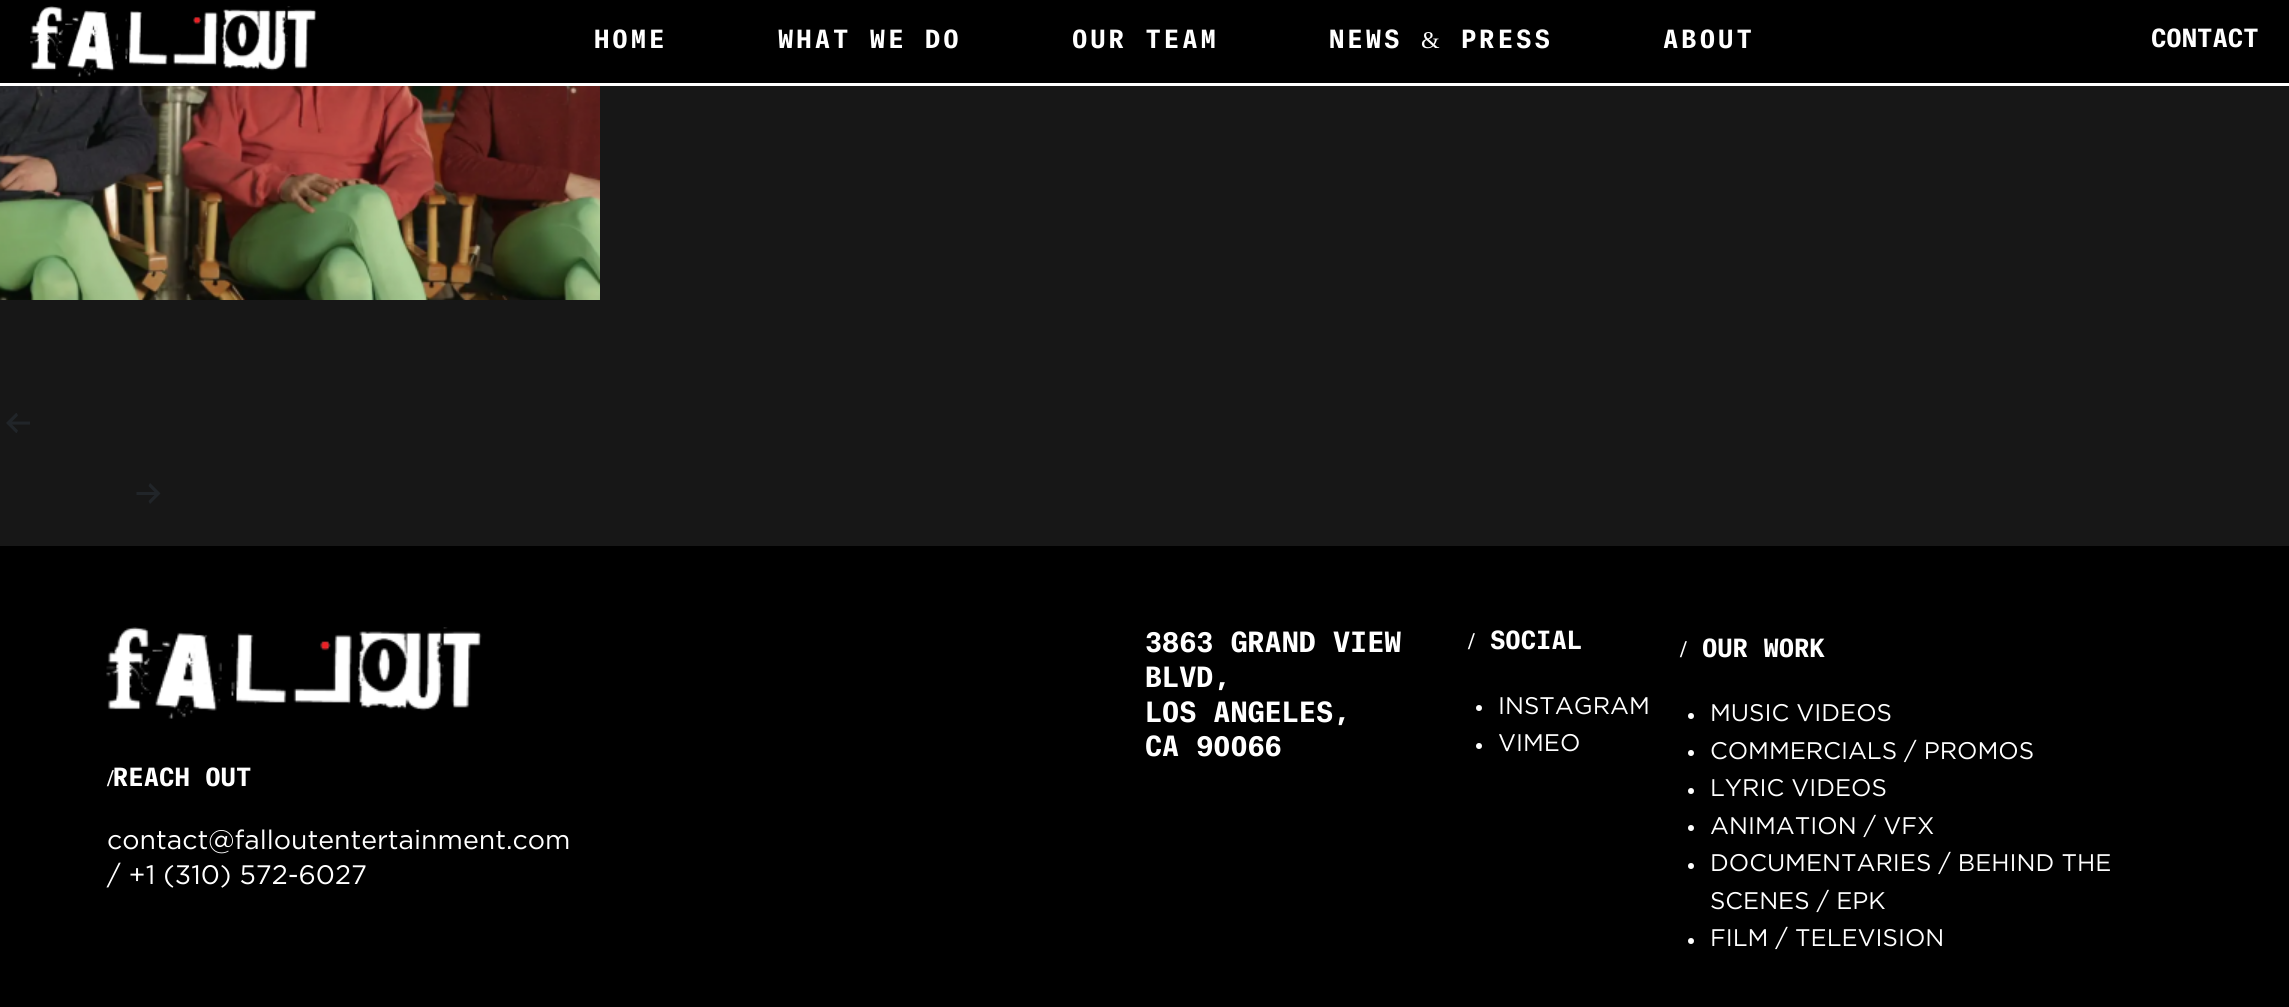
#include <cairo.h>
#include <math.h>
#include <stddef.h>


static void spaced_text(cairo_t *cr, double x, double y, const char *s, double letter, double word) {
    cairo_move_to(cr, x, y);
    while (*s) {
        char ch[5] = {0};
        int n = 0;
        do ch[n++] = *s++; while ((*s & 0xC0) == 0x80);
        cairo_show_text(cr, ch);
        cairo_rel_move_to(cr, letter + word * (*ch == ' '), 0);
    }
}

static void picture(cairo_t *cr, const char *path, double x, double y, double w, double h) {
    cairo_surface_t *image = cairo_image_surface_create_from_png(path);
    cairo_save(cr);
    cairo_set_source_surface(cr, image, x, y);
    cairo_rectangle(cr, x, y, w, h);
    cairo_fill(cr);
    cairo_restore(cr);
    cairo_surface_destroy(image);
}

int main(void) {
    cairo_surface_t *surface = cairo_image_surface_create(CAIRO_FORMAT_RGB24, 2289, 1007);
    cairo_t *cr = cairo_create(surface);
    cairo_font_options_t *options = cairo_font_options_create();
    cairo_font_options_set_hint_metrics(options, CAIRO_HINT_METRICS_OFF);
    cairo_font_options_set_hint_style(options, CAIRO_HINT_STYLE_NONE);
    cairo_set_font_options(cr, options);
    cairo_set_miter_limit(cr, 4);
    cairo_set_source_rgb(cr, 0.09, 0.09, 0.09);
    cairo_paint(cr);
    cairo_set_source_rgb(cr, 0, 0, 0);
    cairo_rectangle(cr, 0, 0, 2289, 83);
    cairo_fill(cr);
    cairo_set_source_rgb(cr, 1, 1, 1);
    cairo_rectangle(cr, 0, 83, 2289, 3);
    cairo_fill(cr);
    picture(cr, "img1.png", 30, 6, 287, 71);
    cairo_select_font_face(cr, "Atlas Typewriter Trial", CAIRO_FONT_SLANT_NORMAL, CAIRO_FONT_WEIGHT_BOLD);
    cairo_set_font_size(cr, 24);
    spaced_text(cr, 594, 48, "HOME", 3, 0);
    spaced_text(cr, 778, 48, "WHAT WE DO", 3, 0);
    spaced_text(cr, 1072, 48, "OUR TEAM", 3, 0);
    spaced_text(cr, 1329, 48, "NEWS", 3, 0);
    cairo_select_font_face(cr, "Liberation Serif", CAIRO_FONT_SLANT_NORMAL, CAIRO_FONT_WEIGHT_NORMAL);
    spaced_text(cr, 1421, 48, "&", 3, 0);
    cairo_select_font_face(cr, "Atlas Typewriter Trial", CAIRO_FONT_SLANT_NORMAL, CAIRO_FONT_WEIGHT_BOLD);
    spaced_text(cr, 1461, 48, "PRESS", 3, 0);
    spaced_text(cr, 1663, 48, "ABOUT", 3, 0);
    cairo_move_to(cr, 2151, 47);
    cairo_show_text(cr, "CONTACT");
    picture(cr, "img2.png", 0, 86, 600, 214);
    picture(cr, "img3.png", 6, 413, 24, 20);
    picture(cr, "img4.png", 136, 483, 25, 21);
    cairo_set_source_rgb(cr, 0, 0, 0);
    cairo_rectangle(cr, 0, 546, 2289, 461);
    cairo_fill(cr);
    picture(cr, "img5.png", 106, 627, 376, 92);
    cairo_select_font_face(cr, "Liberation Serif", CAIRO_FONT_SLANT_NORMAL, CAIRO_FONT_WEIGHT_BOLD);
    cairo_set_source_rgb(cr, 1, 1, 1);
    cairo_move_to(cr, 107, 786);
    cairo_show_text(cr, "/");
    cairo_select_font_face(cr, "Atlas Typewriter Trial", CAIRO_FONT_SLANT_NORMAL, CAIRO_FONT_WEIGHT_BOLD);
    cairo_move_to(cr, 113, 786);
    cairo_show_text(cr, "REACH OUT");
    cairo_select_font_face(cr, "Gotham", CAIRO_FONT_SLANT_NORMAL, CAIRO_FONT_WEIGHT_NORMAL);
    cairo_set_font_size(cr, 26.7);
    cairo_move_to(cr, 107, 849);
    cairo_show_text(cr, "contact@falloutentertainment.com");
    cairo_move_to(cr, 107, 884);
    cairo_show_text(cr, "/ +1 (310) 572-6027");
    cairo_select_font_face(cr, "Atlas Typewriter Trial", CAIRO_FONT_SLANT_NORMAL, CAIRO_FONT_WEIGHT_BOLD);
    cairo_move_to(cr, 1145, 652);
    cairo_show_text(cr, "3863 GRAND VIEW");
    cairo_move_to(cr, 1145, 687);
    cairo_show_text(cr, "BLVD,");
    cairo_move_to(cr, 1145, 722);
    cairo_show_text(cr, "LOS ANGELES,");
    cairo_move_to(cr, 1145, 756);
    cairo_show_text(cr, "CA 90066");
    cairo_select_font_face(cr, "Liberation Serif", CAIRO_FONT_SLANT_NORMAL, CAIRO_FONT_WEIGHT_BOLD);
    cairo_set_font_size(cr, 24);
    cairo_move_to(cr, 1468, 649);
    cairo_show_text(cr, "/");
    cairo_select_font_face(cr, "Atlas Typewriter Trial", CAIRO_FONT_SLANT_NORMAL, CAIRO_FONT_WEIGHT_BOLD);
    cairo_move_to(cr, 1490, 649);
    cairo_show_text(cr, "SOCIAL");
    cairo_new_path(cr);
    cairo_arc(cr, 1479, 708, 3, 0, 2 * M_PI);
    cairo_fill(cr);
    cairo_select_font_face(cr, "Gotham", CAIRO_FONT_SLANT_NORMAL, CAIRO_FONT_WEIGHT_NORMAL);
    cairo_move_to(cr, 1498, 714);
    cairo_show_text(cr, "INSTAGRAM");
    cairo_new_path(cr);
    cairo_arc(cr, 1479, 746, 3, 0, 2 * M_PI);
    cairo_fill(cr);
    cairo_move_to(cr, 1498, 751);
    cairo_show_text(cr, "VIMEO");
    cairo_select_font_face(cr, "Liberation Serif", CAIRO_FONT_SLANT_NORMAL, CAIRO_FONT_WEIGHT_BOLD);
    cairo_move_to(cr, 1680, 657);
    cairo_show_text(cr, "/");
    cairo_select_font_face(cr, "Atlas Typewriter Trial", CAIRO_FONT_SLANT_NORMAL, CAIRO_FONT_WEIGHT_BOLD);
    cairo_move_to(cr, 1702, 657);
    cairo_show_text(cr, "OUR WORK");
    cairo_new_path(cr);
    cairo_arc(cr, 1691, 716, 3, 0, 2 * M_PI);
    cairo_fill(cr);
    cairo_select_font_face(cr, "Gotham", CAIRO_FONT_SLANT_NORMAL, CAIRO_FONT_WEIGHT_NORMAL);
    cairo_move_to(cr, 1710, 721);
    cairo_show_text(cr, "MUSIC VIDEOS");
    cairo_new_path(cr);
    cairo_arc(cr, 1691, 753, 3, 0, 2 * M_PI);
    cairo_fill(cr);
    cairo_move_to(cr, 1710, 759);
    cairo_show_text(cr, "COMMERCIALS / PROMOS");
    cairo_new_path(cr);
    cairo_arc(cr, 1691, 791, 3, 0, 2 * M_PI);
    cairo_fill(cr);
    cairo_move_to(cr, 1710, 796);
    cairo_show_text(cr, "LYRIC VIDEOS");
    cairo_new_path(cr);
    cairo_arc(cr, 1691, 828, 3, 0, 2 * M_PI);
    cairo_fill(cr);
    cairo_move_to(cr, 1710, 834);
    cairo_show_text(cr, "ANIMATION / VFX");
    cairo_new_path(cr);
    cairo_arc(cr, 1691, 866, 3, 0, 2 * M_PI);
    cairo_fill(cr);
    cairo_move_to(cr, 1710, 871);
    cairo_show_text(cr, "DOCUMENTARIES / BEHIND THE");
    cairo_move_to(cr, 1710, 909);
    cairo_show_text(cr, "SCENES / EPK");
    cairo_new_path(cr);
    cairo_arc(cr, 1691, 941, 3, 0, 2 * M_PI);
    cairo_fill(cr);
    cairo_move_to(cr, 1710, 946);
    cairo_show_text(cr, "FILM / TELEVISION");
    cairo_surface_write_to_png(surface, "page.png");
    cairo_font_options_destroy(options);
    cairo_destroy(cr);
    cairo_surface_destroy(surface);
    return 0;
}
